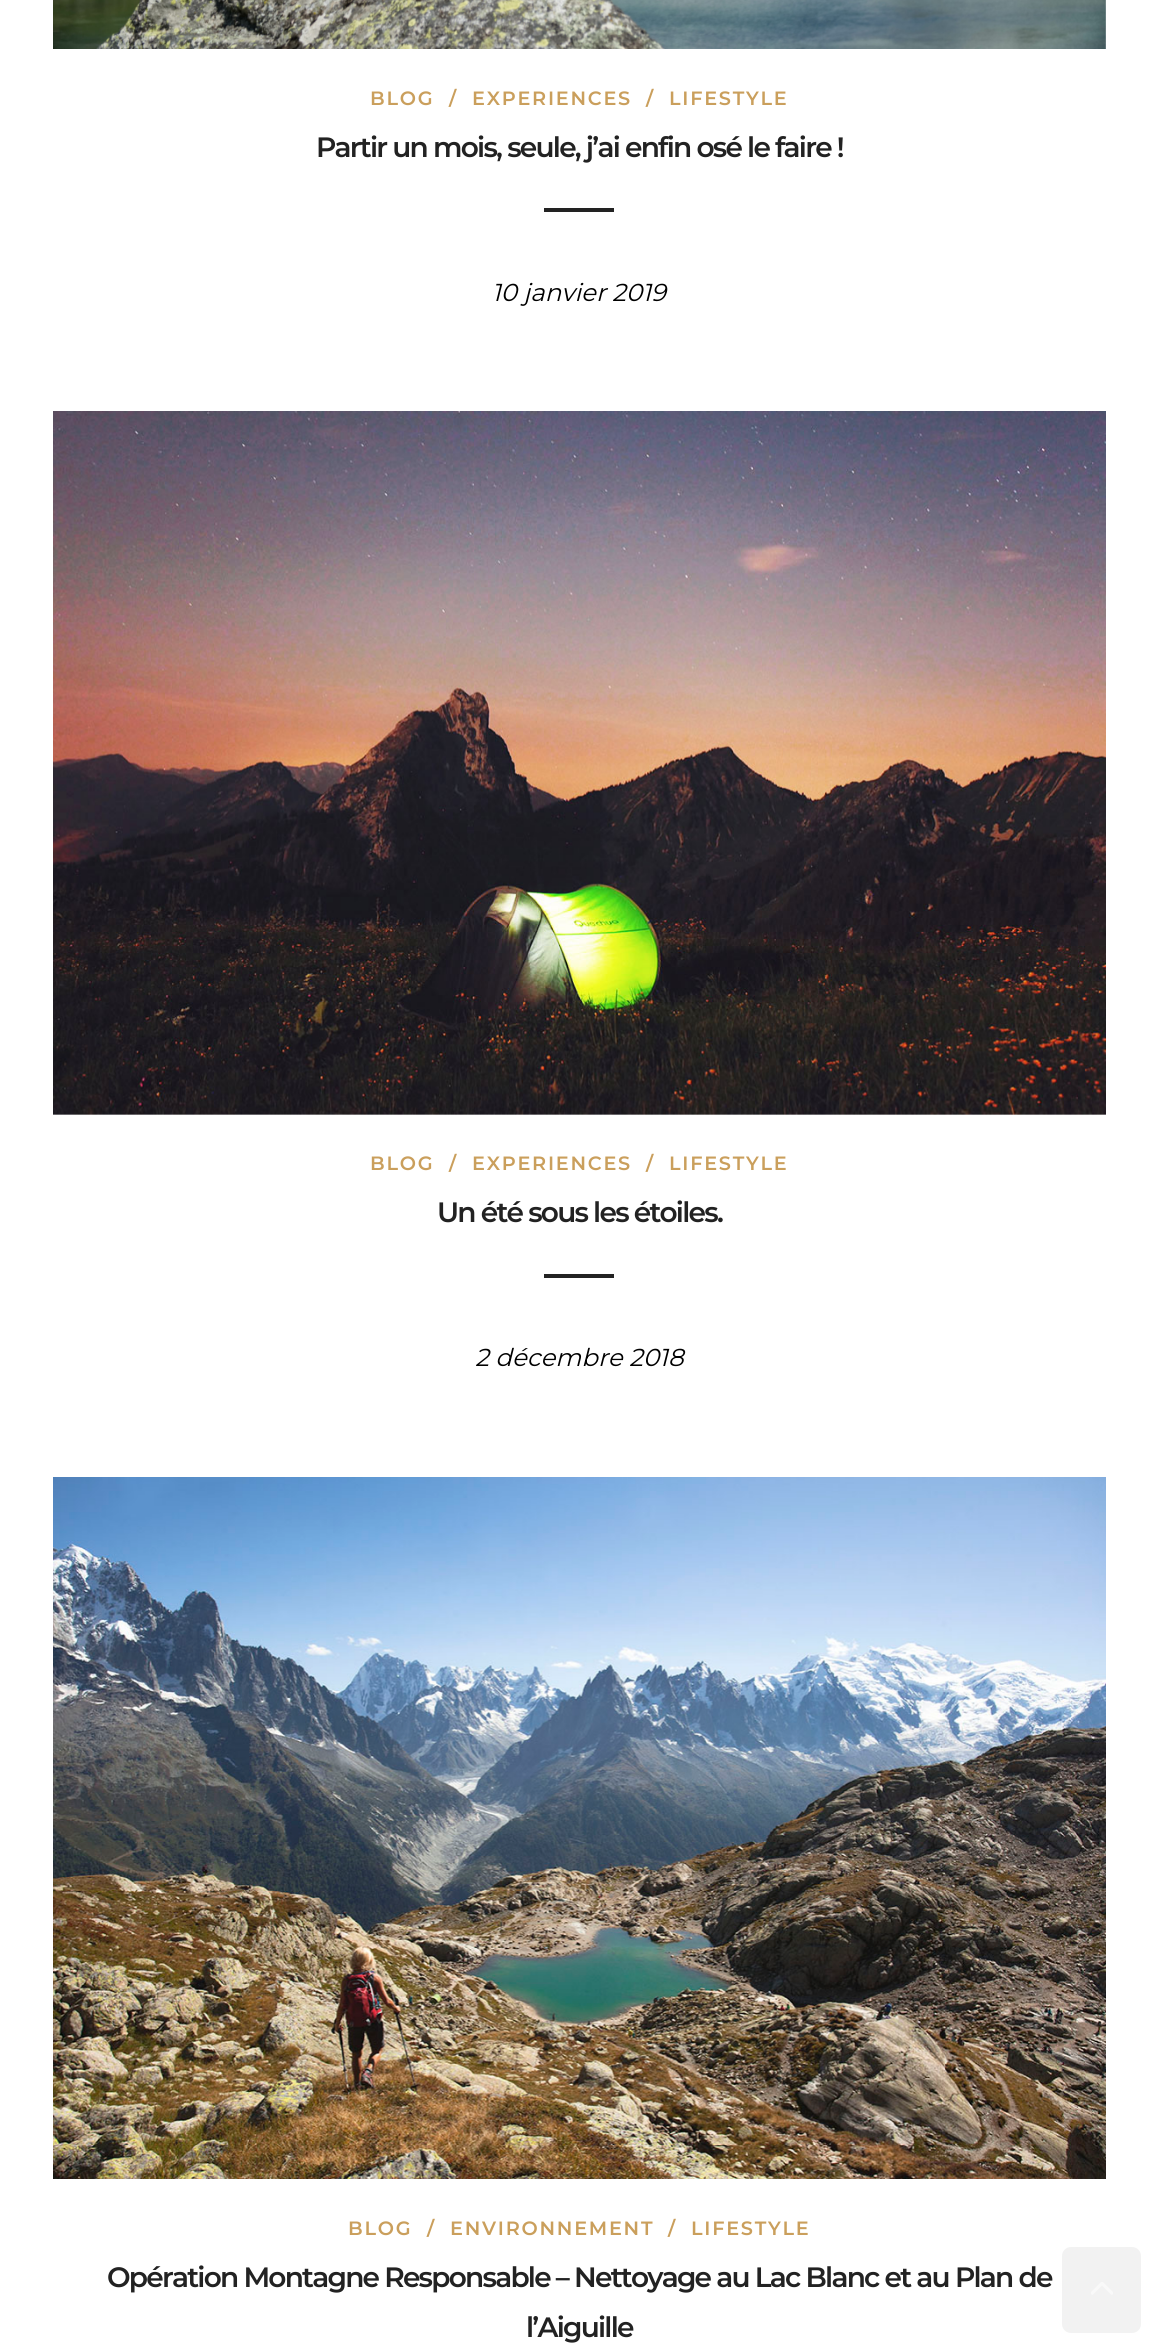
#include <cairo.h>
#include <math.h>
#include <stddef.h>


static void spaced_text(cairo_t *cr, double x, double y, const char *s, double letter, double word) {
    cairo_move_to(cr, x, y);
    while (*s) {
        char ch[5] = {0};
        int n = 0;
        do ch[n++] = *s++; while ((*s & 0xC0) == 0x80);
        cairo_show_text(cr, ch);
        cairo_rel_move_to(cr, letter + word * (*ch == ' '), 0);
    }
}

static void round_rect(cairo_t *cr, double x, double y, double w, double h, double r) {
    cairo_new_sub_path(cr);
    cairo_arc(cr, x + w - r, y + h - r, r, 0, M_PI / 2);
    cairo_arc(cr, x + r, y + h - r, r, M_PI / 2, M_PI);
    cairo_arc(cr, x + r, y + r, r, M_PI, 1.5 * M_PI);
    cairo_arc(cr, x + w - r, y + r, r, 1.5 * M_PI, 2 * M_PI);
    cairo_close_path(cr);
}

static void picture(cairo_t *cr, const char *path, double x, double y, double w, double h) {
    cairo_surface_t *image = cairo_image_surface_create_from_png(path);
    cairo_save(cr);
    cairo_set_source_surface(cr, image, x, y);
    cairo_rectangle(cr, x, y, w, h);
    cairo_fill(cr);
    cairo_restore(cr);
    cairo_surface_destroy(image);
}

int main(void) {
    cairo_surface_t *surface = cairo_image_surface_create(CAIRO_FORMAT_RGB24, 1158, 2345);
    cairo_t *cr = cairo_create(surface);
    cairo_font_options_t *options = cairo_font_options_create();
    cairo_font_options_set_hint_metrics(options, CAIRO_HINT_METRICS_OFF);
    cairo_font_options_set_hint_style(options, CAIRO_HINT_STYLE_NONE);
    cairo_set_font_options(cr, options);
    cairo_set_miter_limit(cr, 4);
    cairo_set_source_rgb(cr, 1, 1, 1);
    cairo_paint(cr);
    picture(cr, "img1.png", 53, 0, 1053, 49);
    cairo_select_font_face(cr, "Montserrat SemiBold", CAIRO_FONT_SLANT_NORMAL, CAIRO_FONT_WEIGHT_NORMAL);
    cairo_set_font_size(cr, 19.25);
    cairo_set_source_rgb(cr, 0.792, 0.624, 0.361);
    spaced_text(cr, 370, 105, "BLOG", 1.75, 0);
    spaced_text(cr, 449, 105, "/", 1.75, 0);
    spaced_text(cr, 472, 105, "EXPERIENCES", 1.75, 0);
    spaced_text(cr, 646, 105, "/", 1.75, 0);
    spaced_text(cr, 669, 105, "LIFESTYLE", 1.75, 0);
    cairo_set_font_size(cr, 28);
    cairo_set_source_rgb(cr, 0.133, 0.133, 0.133);
    spaced_text(cr, 316, 157, "Partir un mois, seule, j’ai enfin osé le faire !", -1.75, 0);
    cairo_rectangle(cr, 544, 208, 70, 4);
    cairo_fill(cr);
    cairo_select_font_face(cr, "Montserrat", CAIRO_FONT_SLANT_ITALIC, CAIRO_FONT_WEIGHT_NORMAL);
    cairo_set_font_size(cr, 24.5);
    cairo_set_source_rgb(cr, 0, 0, 0);
    cairo_move_to(cr, 492, 301);
    cairo_show_text(cr, "10 janvier 2019");
    picture(cr, "img2.png", 53, 411, 1053, 704);
    cairo_select_font_face(cr, "Montserrat SemiBold", CAIRO_FONT_SLANT_NORMAL, CAIRO_FONT_WEIGHT_NORMAL);
    cairo_set_font_size(cr, 19.25);
    cairo_set_source_rgb(cr, 0.792, 0.624, 0.361);
    spaced_text(cr, 370, 1170, "BLOG", 1.75, 0);
    spaced_text(cr, 449, 1170, "/", 1.75, 0);
    spaced_text(cr, 472, 1170, "EXPERIENCES", 1.75, 0);
    spaced_text(cr, 646, 1170, "/", 1.75, 0);
    spaced_text(cr, 669, 1170, "LIFESTYLE", 1.75, 0);
    cairo_set_font_size(cr, 28);
    cairo_set_source_rgb(cr, 0.133, 0.133, 0.133);
    spaced_text(cr, 437, 1222, "Un été sous les étoiles.", -1.75, 0);
    cairo_rectangle(cr, 544, 1274, 70, 4);
    cairo_fill(cr);
    cairo_select_font_face(cr, "Montserrat", CAIRO_FONT_SLANT_ITALIC, CAIRO_FONT_WEIGHT_NORMAL);
    cairo_set_font_size(cr, 24.5);
    cairo_set_source_rgb(cr, 0, 0, 0);
    cairo_move_to(cr, 475, 1366);
    cairo_show_text(cr, "2 décembre 2018");
    picture(cr, "img3.png", 53, 1477, 1053, 702);
    cairo_select_font_face(cr, "Montserrat SemiBold", CAIRO_FONT_SLANT_NORMAL, CAIRO_FONT_WEIGHT_NORMAL);
    cairo_set_font_size(cr, 19.25);
    cairo_set_source_rgb(cr, 0.792, 0.624, 0.361);
    spaced_text(cr, 348, 2235, "BLOG", 1.75, 0);
    spaced_text(cr, 427, 2235, "/", 1.75, 0);
    spaced_text(cr, 450, 2235, "ENVIRONNEMENT", 1.75, 0);
    spaced_text(cr, 668, 2235, "/", 1.75, 0);
    spaced_text(cr, 691, 2235, "LIFESTYLE", 1.75, 0);
    cairo_set_font_size(cr, 28);
    cairo_set_source_rgb(cr, 0.133, 0.133, 0.133);
    spaced_text(cr, 107, 2287, "Opération Montagne Responsable – Nettoyage au Lac Blanc et au Plan de", -1.75, 0);
    spaced_text(cr, 526, 2337, "l’Aiguille", -1.75, 0);
    cairo_set_source_rgb(cr, 0.949, 0.949, 0.949);
    round_rect(cr, 1062, 2247, 79, 86, 9);
    cairo_fill(cr);
    picture(cr, "img4.png", 1091, 2282, 22, 13);
    cairo_surface_write_to_png(surface, "page.png");
    cairo_font_options_destroy(options);
    cairo_destroy(cr);
    cairo_surface_destroy(surface);
    return 0;
}
